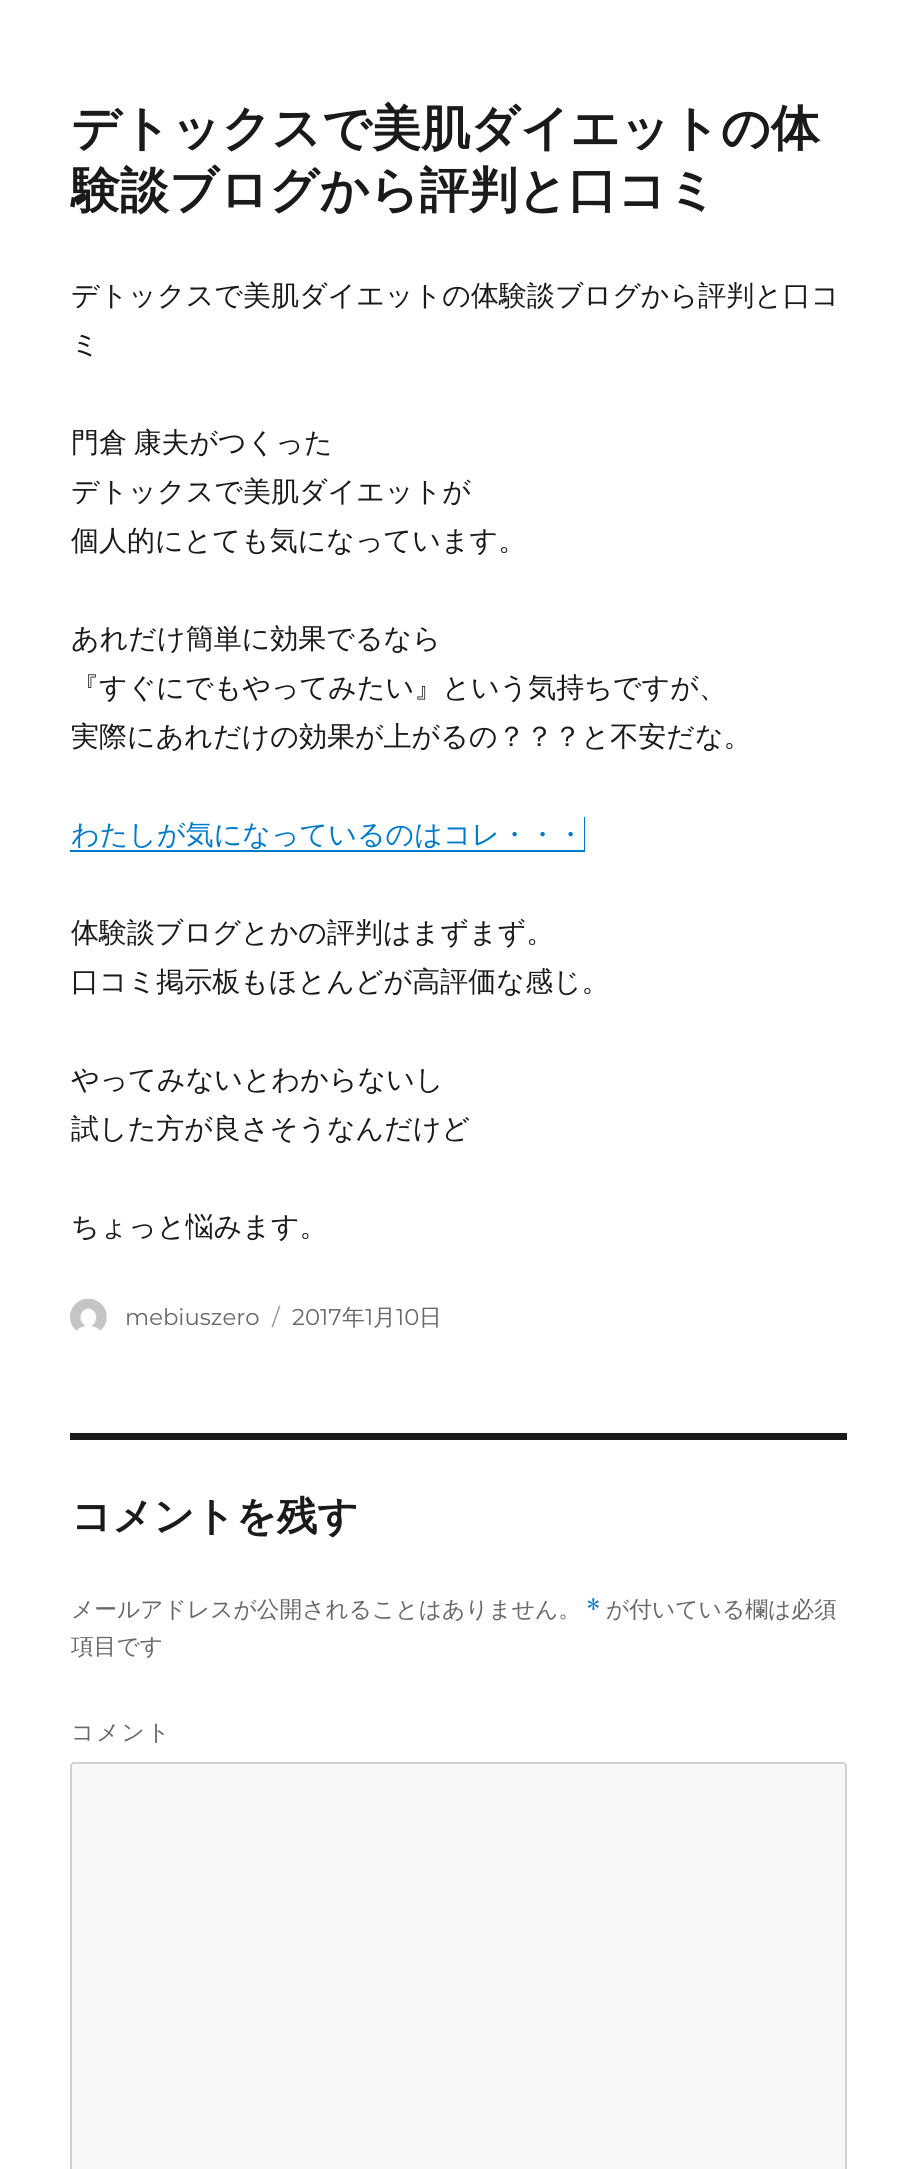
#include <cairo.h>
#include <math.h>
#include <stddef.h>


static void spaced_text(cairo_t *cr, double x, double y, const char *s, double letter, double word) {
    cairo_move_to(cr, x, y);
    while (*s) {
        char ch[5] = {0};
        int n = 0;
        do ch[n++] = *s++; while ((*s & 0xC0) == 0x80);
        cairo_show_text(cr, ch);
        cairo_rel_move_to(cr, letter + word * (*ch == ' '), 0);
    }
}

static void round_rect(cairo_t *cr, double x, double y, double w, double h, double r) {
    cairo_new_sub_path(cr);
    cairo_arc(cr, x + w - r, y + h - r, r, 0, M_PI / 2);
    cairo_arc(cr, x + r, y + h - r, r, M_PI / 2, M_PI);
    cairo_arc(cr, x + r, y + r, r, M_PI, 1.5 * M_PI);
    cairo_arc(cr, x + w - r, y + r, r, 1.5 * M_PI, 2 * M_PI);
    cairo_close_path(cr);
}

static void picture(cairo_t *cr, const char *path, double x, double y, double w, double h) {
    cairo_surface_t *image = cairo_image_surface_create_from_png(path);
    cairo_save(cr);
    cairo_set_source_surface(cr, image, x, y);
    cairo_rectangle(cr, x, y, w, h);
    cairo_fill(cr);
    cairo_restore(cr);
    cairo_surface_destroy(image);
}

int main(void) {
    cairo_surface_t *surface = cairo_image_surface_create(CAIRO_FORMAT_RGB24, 917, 2169);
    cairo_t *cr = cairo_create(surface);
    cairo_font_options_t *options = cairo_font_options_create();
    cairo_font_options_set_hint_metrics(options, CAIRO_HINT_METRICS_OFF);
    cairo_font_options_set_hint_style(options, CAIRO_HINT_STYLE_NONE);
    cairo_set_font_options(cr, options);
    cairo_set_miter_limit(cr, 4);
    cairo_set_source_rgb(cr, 1, 1, 1);
    cairo_paint(cr);
    cairo_select_font_face(cr, "WenQuanYi Zen Hei", CAIRO_FONT_SLANT_NORMAL, CAIRO_FONT_WEIGHT_BOLD);
    cairo_set_font_size(cr, 49);
    cairo_set_source_rgb(cr, 0.102, 0.102, 0.102);
    cairo_move_to(cr, 71, 145);
    cairo_show_text(cr, "デトックスで美肌ダイエットの体");
    cairo_move_to(cr, 71, 207);
    cairo_show_text(cr, "験談ブログから評判と口コミ");
    cairo_select_font_face(cr, "WenQuanYi Zen Hei Medium", CAIRO_FONT_SLANT_NORMAL, CAIRO_FONT_WEIGHT_NORMAL);
    cairo_set_font_size(cr, 28);
    cairo_move_to(cr, 71, 305);
    cairo_show_text(cr, "デトックスで美肌ダイエットの体験談ブログから評判と口コ");
    cairo_move_to(cr, 71, 354);
    cairo_show_text(cr, "ミ");
    spaced_text(cr, 71, 452, "門倉 康夫がつくった", 0, -2);
    cairo_move_to(cr, 71, 501);
    cairo_show_text(cr, "デトックスで美肌ダイエットが");
    cairo_move_to(cr, 71, 550);
    cairo_show_text(cr, "個人的にとても気になっています。");
    cairo_move_to(cr, 71, 648);
    cairo_show_text(cr, "あれだけ簡単に効果でるなら");
    cairo_move_to(cr, 71, 697);
    cairo_show_text(cr, "『すぐにでもやってみたい』という気持ちですが、");
    cairo_move_to(cr, 71, 746);
    cairo_show_text(cr, "実際にあれだけの効果が上がるの？？？と不安だな。");
    cairo_set_source_rgb(cr, 0, 0.478, 0.8);
    cairo_new_path(cr);
    cairo_move_to(cr, 70, 850);
    cairo_line_to(cr, 70, 852);
    cairo_line_to(cr, 585, 852);
    cairo_line_to(cr, 585, 817);
    cairo_line_to(cr, 584, 817);
    cairo_line_to(cr, 584, 850);
    cairo_close_path(cr);
    cairo_fill(cr);
    cairo_move_to(cr, 71, 844);
    cairo_show_text(cr, "わたしが気になっているのはコレ・・・");
    cairo_set_source_rgb(cr, 0.102, 0.102, 0.102);
    cairo_move_to(cr, 71, 942);
    cairo_show_text(cr, "体験談ブログとかの評判はまずまず。");
    cairo_move_to(cr, 71, 991);
    cairo_show_text(cr, "口コミ掲示板もほとんどが高評価な感じ。");
    cairo_move_to(cr, 71, 1089);
    cairo_show_text(cr, "やってみないとわからないし");
    cairo_move_to(cr, 71, 1138);
    cairo_show_text(cr, "試した方が良さそうなんだけど");
    cairo_move_to(cr, 71, 1236);
    cairo_show_text(cr, "ちょっと悩みます。");
    picture(cr, "img1.png", 70, 1298, 37, 34);
    cairo_select_font_face(cr, "Montserrat", CAIRO_FONT_SLANT_NORMAL, CAIRO_FONT_WEIGHT_NORMAL);
    cairo_set_font_size(cr, 22.75);
    cairo_set_source_rgb(cr, 0.408, 0.408, 0.408);
    cairo_move_to(cr, 125, 1325);
    cairo_show_text(cr, "mebiuszero");
    cairo_set_source_rgb(cr, 0.584, 0.584, 0.584);
    cairo_move_to(cr, 272, 1325);
    cairo_show_text(cr, "/");
    cairo_set_source_rgb(cr, 0.408, 0.408, 0.408);
    cairo_move_to(cr, 292, 1325);
    cairo_show_text(cr, "2017");
    cairo_select_font_face(cr, "WenQuanYi Zen Hei Medium", CAIRO_FONT_SLANT_NORMAL, CAIRO_FONT_WEIGHT_NORMAL);
    cairo_move_to(cr, 342, 1325);
    cairo_show_text(cr, "年");
    cairo_select_font_face(cr, "Montserrat", CAIRO_FONT_SLANT_NORMAL, CAIRO_FONT_WEIGHT_NORMAL);
    cairo_move_to(cr, 365, 1325);
    cairo_show_text(cr, "1");
    cairo_select_font_face(cr, "WenQuanYi Zen Hei Medium", CAIRO_FONT_SLANT_NORMAL, CAIRO_FONT_WEIGHT_NORMAL);
    cairo_move_to(cr, 373, 1325);
    cairo_show_text(cr, "月");
    cairo_select_font_face(cr, "Montserrat", CAIRO_FONT_SLANT_NORMAL, CAIRO_FONT_WEIGHT_NORMAL);
    cairo_move_to(cr, 396, 1325);
    cairo_show_text(cr, "10");
    cairo_select_font_face(cr, "WenQuanYi Zen Hei Medium", CAIRO_FONT_SLANT_NORMAL, CAIRO_FONT_WEIGHT_NORMAL);
    cairo_move_to(cr, 419, 1325);
    cairo_show_text(cr, "日");
    cairo_set_source_rgb(cr, 0.102, 0.102, 0.102);
    cairo_rectangle(cr, 70, 1433, 777, 7);
    cairo_fill(cr);
    cairo_select_font_face(cr, "WenQuanYi Zen Hei", CAIRO_FONT_SLANT_NORMAL, CAIRO_FONT_WEIGHT_BOLD);
    cairo_set_font_size(cr, 40.25);
    cairo_move_to(cr, 71, 1530);
    cairo_show_text(cr, "コメントを残す");
    cairo_select_font_face(cr, "WenQuanYi Zen Hei Medium", CAIRO_FONT_SLANT_NORMAL, CAIRO_FONT_WEIGHT_NORMAL);
    cairo_set_font_size(cr, 22.75);
    cairo_set_source_rgb(cr, 0.408, 0.408, 0.408);
    cairo_move_to(cr, 71, 1617);
    cairo_show_text(cr, "メールアドレスが公開されることはありません。");
    cairo_select_font_face(cr, "Merriweather", CAIRO_FONT_SLANT_NORMAL, CAIRO_FONT_WEIGHT_NORMAL);
    cairo_set_source_rgb(cr, 0, 0.478, 0.8);
    cairo_move_to(cr, 586, 1617);
    cairo_show_text(cr, "*");
    cairo_select_font_face(cr, "WenQuanYi Zen Hei Medium", CAIRO_FONT_SLANT_NORMAL, CAIRO_FONT_WEIGHT_NORMAL);
    cairo_set_source_rgb(cr, 0.408, 0.408, 0.408);
    cairo_move_to(cr, 606, 1617);
    cairo_show_text(cr, "が付いている欄は必須");
    cairo_move_to(cr, 71, 1654);
    cairo_show_text(cr, "項目です");
    spaced_text(cr, 71, 1740, "コメント", 2, 0);
    cairo_set_source_rgb(cr, 0.969, 0.969, 0.969);
    round_rect(cr, 71, 1763, 775, 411, 3);
    cairo_fill_preserve(cr);
    cairo_set_source_rgb(cr, 0.82, 0.82, 0.82);
    cairo_stroke(cr);
    cairo_surface_write_to_png(surface, "page.png");
    cairo_font_options_destroy(options);
    cairo_destroy(cr);
    cairo_surface_destroy(surface);
    return 0;
}
